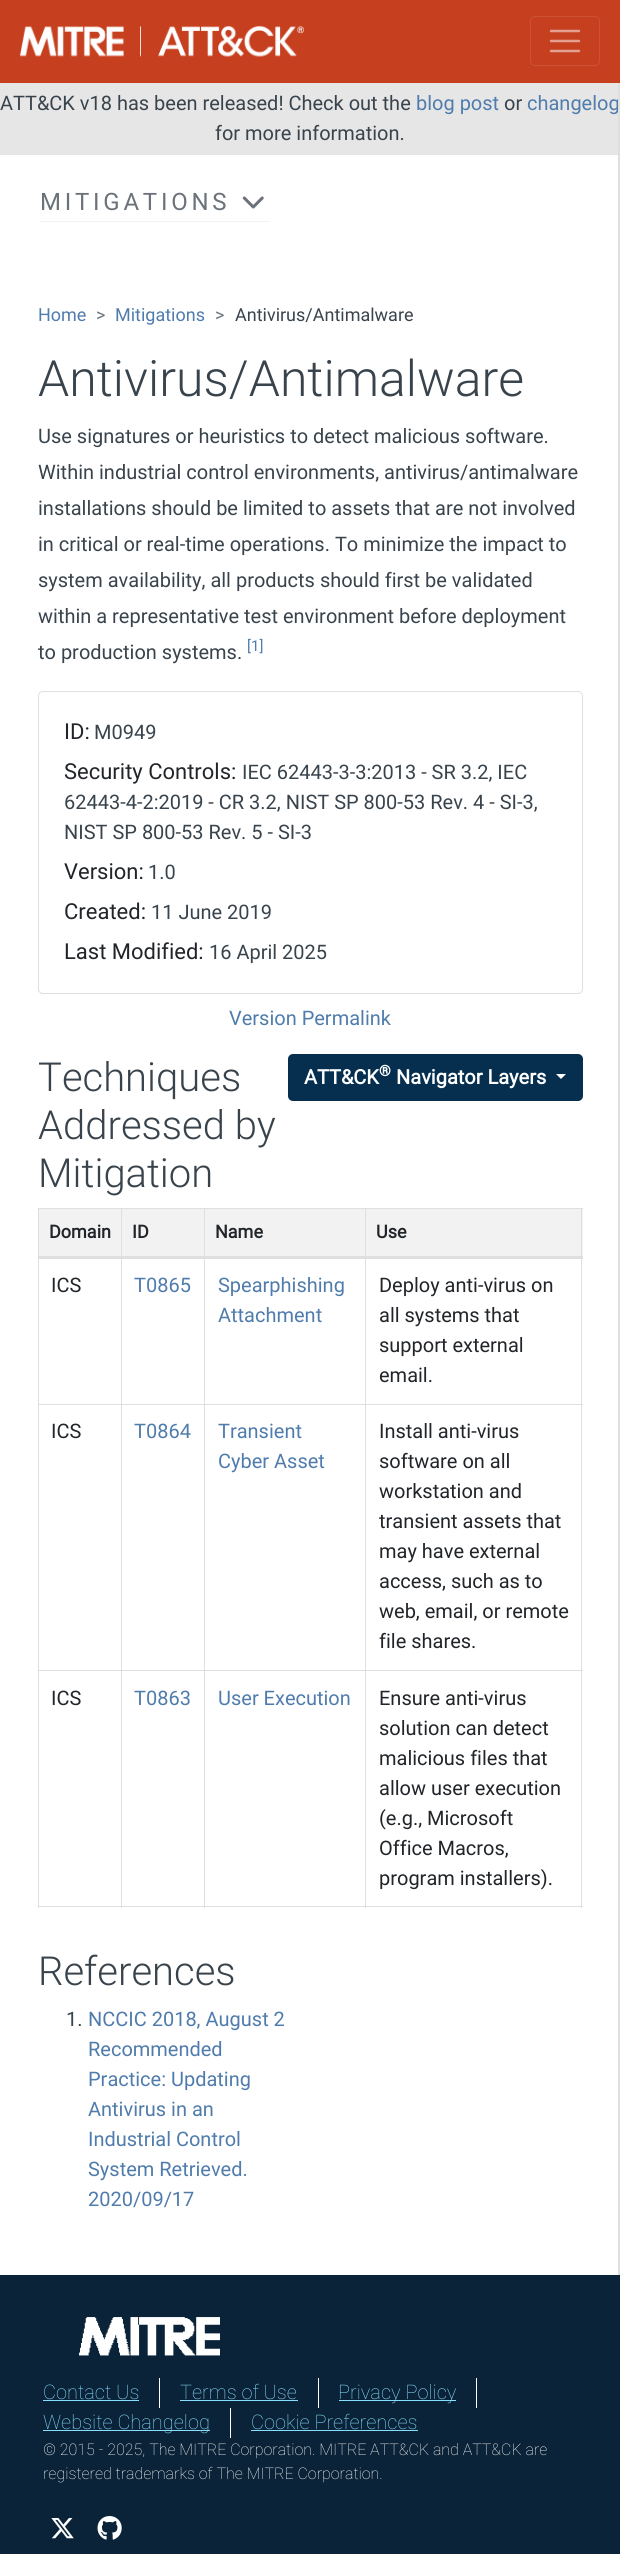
#include <cairo.h>
#include <math.h>
#include <stddef.h>


static void spaced_text(cairo_t *cr, double x, double y, const char *s, double letter, double word) {
    cairo_move_to(cr, x, y);
    while (*s) {
        char ch[5] = {0};
        int n = 0;
        do ch[n++] = *s++; while ((*s & 0xC0) == 0x80);
        cairo_show_text(cr, ch);
        cairo_rel_move_to(cr, letter + word * (*ch == ' '), 0);
    }
}

static void round_rect(cairo_t *cr, double x, double y, double w, double h, double r) {
    cairo_new_sub_path(cr);
    cairo_arc(cr, x + w - r, y + h - r, r, 0, M_PI / 2);
    cairo_arc(cr, x + r, y + h - r, r, M_PI / 2, M_PI);
    cairo_arc(cr, x + r, y + r, r, M_PI, 1.5 * M_PI);
    cairo_arc(cr, x + w - r, y + r, r, 1.5 * M_PI, 2 * M_PI);
    cairo_close_path(cr);
}

static void picture(cairo_t *cr, const char *path, double x, double y, double w, double h) {
    cairo_surface_t *image = cairo_image_surface_create_from_png(path);
    cairo_save(cr);
    cairo_set_source_surface(cr, image, x, y);
    cairo_rectangle(cr, x, y, w, h);
    cairo_fill(cr);
    cairo_restore(cr);
    cairo_surface_destroy(image);
}

int main(void) {
    cairo_surface_t *surface = cairo_image_surface_create(CAIRO_FORMAT_RGB24, 620, 2554);
    cairo_t *cr = cairo_create(surface);
    cairo_font_options_t *options = cairo_font_options_create();
    cairo_font_options_set_hint_metrics(options, CAIRO_HINT_METRICS_OFF);
    cairo_font_options_set_hint_style(options, CAIRO_HINT_STYLE_NONE);
    cairo_set_font_options(cr, options);
    cairo_set_miter_limit(cr, 4);
    cairo_set_source_rgb(cr, 1, 1, 1);
    cairo_paint(cr);
    cairo_set_source_rgb(cr, 0.776, 0.247, 0.122);
    cairo_rectangle(cr, 0, 0, 620, 83);
    cairo_fill(cr);
    picture(cr, "img1.png", 20, 26, 284, 31);
    round_rect(cr, 530.5, 16.5, 69, 49, 4.5);
    cairo_set_source_rgb(cr, 0.8, 0.322, 0.208);
    cairo_set_line_width(cr, 1);
    cairo_stroke(cr);
    cairo_new_path(cr);
    cairo_move_to(cr, 551, 31);
    cairo_line_to(cr, 579, 31);
    cairo_move_to(cr, 551, 41);
    cairo_line_to(cr, 579, 41);
    cairo_move_to(cr, 551, 51);
    cairo_line_to(cr, 579, 51);
    cairo_set_source_rgb(cr, 0.89, 0.624, 0.561);
    cairo_set_line_width(cr, 2.5);
    cairo_set_line_cap(cr, CAIRO_LINE_CAP_ROUND);
    cairo_stroke(cr);
    cairo_set_source_rgb(cr, 0.902, 0.902, 0.902);
    cairo_rectangle(cr, 0, 83, 618, 72);
    cairo_fill(cr);
    cairo_select_font_face(cr, "Roboto", CAIRO_FONT_SLANT_NORMAL, CAIRO_FONT_WEIGHT_NORMAL);
    cairo_set_font_size(cr, 20);
    cairo_set_source_rgb(cr, 0.224, 0.263, 0.298);
    cairo_move_to(cr, 0, 110);
    cairo_show_text(cr, "ATT&CK v18 has been released! Check out the");
    cairo_set_source_rgb(cr, 0.31, 0.486, 0.675);
    cairo_move_to(cr, 416, 110);
    cairo_show_text(cr, "blog post");
    cairo_set_source_rgb(cr, 0.224, 0.263, 0.298);
    cairo_move_to(cr, 504, 110);
    cairo_show_text(cr, "or");
    cairo_set_source_rgb(cr, 0.31, 0.486, 0.675);
    cairo_move_to(cr, 527, 110);
    cairo_show_text(cr, "changelog");
    cairo_set_source_rgb(cr, 0.224, 0.263, 0.298);
    cairo_move_to(cr, 215, 140);
    cairo_show_text(cr, "for more information.");
    cairo_set_source_rgb(cr, 0.949, 0.949, 0.949);
    cairo_rectangle(cr, 40, 221, 230, 1);
    cairo_fill(cr);
    cairo_set_font_size(cr, 24);
    cairo_set_source_rgb(cr, 0.42, 0.447, 0.475);
    spaced_text(cr, 40, 210, "MITIGATIONS", 3.75, 0);
    picture(cr, "img2.png", 242, 196, 22, 13);
    cairo_set_source_rgb(cr, 0.875, 0.875, 0.875);
    cairo_rectangle(cr, 618, 83, 2, 2192);
    cairo_fill(cr);
    cairo_set_font_size(cr, 18);
    cairo_set_source_rgb(cr, 0.31, 0.486, 0.675);
    cairo_move_to(cr, 38, 321);
    cairo_show_text(cr, "Home");
    cairo_set_source_rgb(cr, 0.42, 0.447, 0.475);
    cairo_move_to(cr, 96, 321);
    cairo_show_text(cr, ">");
    cairo_set_source_rgb(cr, 0.31, 0.486, 0.675);
    cairo_move_to(cr, 115, 321);
    cairo_show_text(cr, "Mitigations");
    cairo_set_source_rgb(cr, 0.42, 0.447, 0.475);
    cairo_move_to(cr, 215, 321);
    cairo_show_text(cr, ">");
    cairo_set_source_rgb(cr, 0.224, 0.263, 0.298);
    cairo_move_to(cr, 235, 321);
    cairo_show_text(cr, "Antivirus/Antimalware");
    cairo_select_font_face(cr, "Roboto Light", CAIRO_FONT_SLANT_NORMAL, CAIRO_FONT_WEIGHT_NORMAL);
    cairo_set_font_size(cr, 50);
    cairo_move_to(cr, 38, 396);
    cairo_show_text(cr, "Antivirus/Antimalware");
    cairo_select_font_face(cr, "Roboto", CAIRO_FONT_SLANT_NORMAL, CAIRO_FONT_WEIGHT_NORMAL);
    cairo_set_font_size(cr, 20);
    cairo_move_to(cr, 38, 443);
    cairo_show_text(cr, "Use signatures or heuristics to detect malicious software.");
    cairo_move_to(cr, 38, 479);
    cairo_show_text(cr, "Within industrial control environments, antivirus/antimalware");
    cairo_move_to(cr, 38, 515);
    cairo_show_text(cr, "installations should be limited to assets that are not involved");
    cairo_move_to(cr, 38, 551);
    cairo_show_text(cr, "in critical or real-time operations. To minimize the impact to");
    cairo_move_to(cr, 38, 587);
    cairo_show_text(cr, "system availability, all products should first be validated");
    cairo_move_to(cr, 38, 623);
    cairo_show_text(cr, "within a representative test environment before deployment");
    cairo_move_to(cr, 38, 659);
    cairo_show_text(cr, "to production systems.");
    cairo_set_font_size(cr, 15);
    cairo_set_source_rgb(cr, 0.31, 0.486, 0.675);
    cairo_move_to(cr, 247, 651);
    cairo_show_text(cr, "[1]");
    round_rect(cr, 38.5, 691.5, 544, 302, 4.5);
    cairo_set_source_rgb(cr, 0.875, 0.875, 0.875);
    cairo_set_line_width(cr, 1);
    cairo_set_line_cap(cr, CAIRO_LINE_CAP_BUTT);
    cairo_stroke(cr);
    cairo_set_font_size(cr, 22);
    cairo_set_source_rgb(cr, 0.129, 0.145, 0.161);
    cairo_move_to(cr, 64, 739);
    cairo_show_text(cr, "ID:");
    cairo_set_font_size(cr, 20);
    cairo_set_source_rgb(cr, 0.224, 0.263, 0.298);
    cairo_move_to(cr, 94, 739);
    cairo_show_text(cr, "M0949");
    cairo_set_font_size(cr, 22);
    cairo_set_source_rgb(cr, 0.129, 0.145, 0.161);
    cairo_move_to(cr, 64, 779);
    cairo_show_text(cr, "Security Controls:");
    cairo_set_font_size(cr, 20);
    cairo_set_source_rgb(cr, 0.224, 0.263, 0.298);
    cairo_move_to(cr, 242, 779);
    cairo_show_text(cr, "IEC 62443-3-3:2013 - SR 3.2, IEC");
    cairo_move_to(cr, 64, 809);
    cairo_show_text(cr, "62443-4-2:2019 - CR 3.2, NIST SP 800-53 Rev. 4 - SI-3,");
    cairo_move_to(cr, 64, 839);
    cairo_show_text(cr, "NIST SP 800-53 Rev. 5 - SI-3");
    cairo_set_font_size(cr, 22);
    cairo_set_source_rgb(cr, 0.129, 0.145, 0.161);
    cairo_move_to(cr, 64, 879);
    cairo_show_text(cr, "Version:");
    cairo_set_font_size(cr, 20);
    cairo_set_source_rgb(cr, 0.224, 0.263, 0.298);
    cairo_move_to(cr, 148, 879);
    cairo_show_text(cr, "1.0");
    cairo_set_font_size(cr, 22);
    cairo_set_source_rgb(cr, 0.129, 0.145, 0.161);
    cairo_move_to(cr, 64, 919);
    cairo_show_text(cr, "Created:");
    cairo_set_font_size(cr, 20);
    cairo_set_source_rgb(cr, 0.224, 0.263, 0.298);
    cairo_move_to(cr, 151, 919);
    cairo_show_text(cr, "11 June 2019");
    cairo_set_font_size(cr, 22);
    cairo_set_source_rgb(cr, 0.129, 0.145, 0.161);
    cairo_move_to(cr, 64, 959);
    cairo_show_text(cr, "Last Modified:");
    cairo_set_font_size(cr, 20);
    cairo_set_source_rgb(cr, 0.224, 0.263, 0.298);
    cairo_move_to(cr, 209, 959);
    cairo_show_text(cr, "16 April 2025");
    cairo_set_source_rgb(cr, 0.31, 0.486, 0.675);
    cairo_move_to(cr, 229, 1025);
    cairo_show_text(cr, "Version Permalink");
    cairo_select_font_face(cr, "Roboto Light", CAIRO_FONT_SLANT_NORMAL, CAIRO_FONT_WEIGHT_NORMAL);
    cairo_set_font_size(cr, 40);
    cairo_set_source_rgb(cr, 0.224, 0.263, 0.298);
    cairo_move_to(cr, 38, 1091);
    cairo_show_text(cr, "Techniques");
    cairo_move_to(cr, 38, 1139);
    cairo_show_text(cr, "Addressed by");
    cairo_move_to(cr, 38, 1187);
    cairo_show_text(cr, "Mitigation");
    cairo_set_source_rgb(cr, 0.024, 0.184, 0.31);
    round_rect(cr, 288, 1054, 295, 47, 5);
    cairo_fill(cr);
    cairo_select_font_face(cr, "Roboto", CAIRO_FONT_SLANT_NORMAL, CAIRO_FONT_WEIGHT_BOLD);
    cairo_set_font_size(cr, 20);
    cairo_set_source_rgb(cr, 1, 1, 1);
    cairo_move_to(cr, 304, 1084);
    cairo_show_text(cr, "ATT&CK");
    cairo_set_font_size(cr, 15);
    cairo_move_to(cr, 379, 1076);
    cairo_show_text(cr, "®");
    cairo_set_font_size(cr, 20);
    cairo_move_to(cr, 396, 1084);
    cairo_show_text(cr, "Navigator Layers");
    cairo_new_path(cr);
    cairo_move_to(cr, 556, 1074);
    cairo_line_to(cr, 566, 1074);
    cairo_line_to(cr, 561, 1079);
    cairo_close_path(cr);
    cairo_fill(cr);
    cairo_set_source_rgb(cr, 0.875, 0.875, 0.875);
    cairo_rectangle(cr, 38, 1208, 545, 1);
    cairo_fill(cr);
    cairo_set_source_rgb(cr, 0.949, 0.949, 0.949);
    cairo_rectangle(cr, 39, 1209, 544, 47);
    cairo_fill(cr);
    cairo_set_source_rgb(cr, 0.875, 0.875, 0.875);
    cairo_rectangle(cr, 581, 1208, 1, 700);
    cairo_fill(cr);
    cairo_rectangle(cr, 38, 1906, 545, 1);
    cairo_fill(cr);
    cairo_rectangle(cr, 38, 1208, 1, 700);
    cairo_fill(cr);
    cairo_set_font_size(cr, 18);
    cairo_set_source_rgb(cr, 0.129, 0.145, 0.161);
    cairo_move_to(cr, 49, 1238);
    cairo_show_text(cr, "Domain");
    cairo_move_to(cr, 132, 1238);
    cairo_show_text(cr, "ID");
    cairo_move_to(cr, 215, 1238);
    cairo_show_text(cr, "Name");
    cairo_set_source_rgb(cr, 0.875, 0.875, 0.875);
    cairo_rectangle(cr, 365, 1404, 218, 1);
    cairo_fill(cr);
    cairo_rectangle(cr, 365, 1670, 218, 1);
    cairo_fill(cr);
    cairo_rectangle(cr, 365, 1670, 1, 238);
    cairo_fill(cr);
    cairo_rectangle(cr, 204, 1670, 162, 1);
    cairo_fill(cr);
    cairo_rectangle(cr, 365, 1404, 1, 267);
    cairo_fill(cr);
    cairo_rectangle(cr, 204, 1404, 162, 1);
    cairo_fill(cr);
    cairo_rectangle(cr, 204, 1670, 1, 238);
    cairo_fill(cr);
    cairo_rectangle(cr, 121, 1670, 84, 1);
    cairo_fill(cr);
    cairo_rectangle(cr, 204, 1404, 1, 267);
    cairo_fill(cr);
    cairo_rectangle(cr, 121, 1404, 84, 1);
    cairo_fill(cr);
    cairo_rectangle(cr, 121, 1670, 1, 238);
    cairo_fill(cr);
    cairo_rectangle(cr, 38, 1670, 85, 1);
    cairo_fill(cr);
    cairo_rectangle(cr, 121, 1404, 1, 267);
    cairo_fill(cr);
    cairo_rectangle(cr, 38, 1404, 85, 1);
    cairo_fill(cr);
    cairo_rectangle(cr, 121, 1208, 1, 197);
    cairo_fill(cr);
    cairo_rectangle(cr, 204, 1208, 1, 197);
    cairo_fill(cr);
    cairo_rectangle(cr, 365, 1208, 1, 197);
    cairo_fill(cr);
    cairo_rectangle(cr, 38, 1256, 545, 3);
    cairo_fill(cr);
    cairo_set_source_rgb(cr, 0.129, 0.145, 0.161);
    cairo_move_to(cr, 376, 1238);
    cairo_show_text(cr, "Use");
    cairo_select_font_face(cr, "Roboto", CAIRO_FONT_SLANT_NORMAL, CAIRO_FONT_WEIGHT_NORMAL);
    cairo_set_font_size(cr, 20);
    cairo_move_to(cr, 51, 1292);
    cairo_show_text(cr, "ICS");
    cairo_set_source_rgb(cr, 0.31, 0.486, 0.675);
    cairo_move_to(cr, 134, 1292);
    cairo_show_text(cr, "T0865");
    cairo_move_to(cr, 218, 1292);
    cairo_show_text(cr, "Spearphishing");
    cairo_move_to(cr, 218, 1322);
    cairo_show_text(cr, "Attachment");
    cairo_set_source_rgb(cr, 0.129, 0.145, 0.161);
    cairo_move_to(cr, 379, 1292);
    cairo_show_text(cr, "Deploy anti-virus on");
    cairo_move_to(cr, 379, 1322);
    cairo_show_text(cr, "all systems that");
    cairo_move_to(cr, 379, 1352);
    cairo_show_text(cr, "support external");
    cairo_move_to(cr, 379, 1382);
    cairo_show_text(cr, "email.");
    cairo_move_to(cr, 51, 1438);
    cairo_show_text(cr, "ICS");
    cairo_set_source_rgb(cr, 0.31, 0.486, 0.675);
    cairo_move_to(cr, 134, 1438);
    cairo_show_text(cr, "T0864");
    cairo_move_to(cr, 218, 1438);
    cairo_show_text(cr, "Transient");
    cairo_move_to(cr, 218, 1468);
    cairo_show_text(cr, "Cyber Asset");
    cairo_set_source_rgb(cr, 0.129, 0.145, 0.161);
    cairo_move_to(cr, 379, 1438);
    cairo_show_text(cr, "Install anti-virus");
    cairo_move_to(cr, 379, 1468);
    cairo_show_text(cr, "software on all");
    cairo_move_to(cr, 379, 1498);
    cairo_show_text(cr, "workstation and");
    cairo_move_to(cr, 379, 1528);
    cairo_show_text(cr, "transient assets that");
    cairo_move_to(cr, 379, 1558);
    cairo_show_text(cr, "may have external");
    cairo_move_to(cr, 379, 1588);
    cairo_show_text(cr, "access, such as to");
    cairo_move_to(cr, 379, 1618);
    cairo_show_text(cr, "web, email, or remote");
    cairo_move_to(cr, 379, 1648);
    cairo_show_text(cr, "file shares.");
    cairo_move_to(cr, 51, 1705);
    cairo_show_text(cr, "ICS");
    cairo_set_source_rgb(cr, 0.31, 0.486, 0.675);
    cairo_move_to(cr, 134, 1705);
    cairo_show_text(cr, "T0863");
    cairo_move_to(cr, 218, 1705);
    cairo_show_text(cr, "User Execution");
    cairo_set_source_rgb(cr, 0.129, 0.145, 0.161);
    cairo_move_to(cr, 379, 1705);
    cairo_show_text(cr, "Ensure anti-virus");
    cairo_move_to(cr, 379, 1735);
    cairo_show_text(cr, "solution can detect");
    cairo_move_to(cr, 379, 1765);
    cairo_show_text(cr, "malicious files that");
    cairo_move_to(cr, 379, 1795);
    cairo_show_text(cr, "allow user execution");
    cairo_move_to(cr, 379, 1825);
    cairo_show_text(cr, "(e.g., Microsoft");
    cairo_move_to(cr, 379, 1855);
    cairo_show_text(cr, "Office Macros,");
    cairo_move_to(cr, 379, 1885);
    cairo_show_text(cr, "program installers).");
    cairo_select_font_face(cr, "Roboto Light", CAIRO_FONT_SLANT_NORMAL, CAIRO_FONT_WEIGHT_NORMAL);
    cairo_set_font_size(cr, 40);
    cairo_set_source_rgb(cr, 0.224, 0.263, 0.298);
    cairo_move_to(cr, 38, 1985);
    cairo_show_text(cr, "References");
    cairo_select_font_face(cr, "Roboto", CAIRO_FONT_SLANT_NORMAL, CAIRO_FONT_WEIGHT_NORMAL);
    cairo_set_font_size(cr, 20);
    cairo_move_to(cr, 66, 2026);
    cairo_show_text(cr, "1.");
    cairo_set_source_rgb(cr, 0.31, 0.486, 0.675);
    cairo_move_to(cr, 88, 2026);
    cairo_show_text(cr, "NCCIC 2018, August 2");
    cairo_move_to(cr, 88, 2056);
    cairo_show_text(cr, "Recommended");
    cairo_move_to(cr, 88, 2086);
    cairo_show_text(cr, "Practice: Updating");
    cairo_move_to(cr, 88, 2116);
    cairo_show_text(cr, "Antivirus in an");
    cairo_move_to(cr, 88, 2146);
    cairo_show_text(cr, "Industrial Control");
    cairo_move_to(cr, 88, 2176);
    cairo_show_text(cr, "System Retrieved.");
    cairo_move_to(cr, 88, 2206);
    cairo_show_text(cr, "2020/09/17");
    cairo_set_source_rgb(cr, 0.043, 0.137, 0.22);
    cairo_rectangle(cr, 0, 2275, 620, 279);
    cairo_fill(cr);
    picture(cr, "img3.png", 79, 2317, 141, 39);
    cairo_set_source_rgb(cr, 1, 1, 1);
    cairo_rectangle(cr, 159, 2378, 1, 30);
    cairo_fill(cr);
    cairo_select_font_face(cr, "Roboto Thin", CAIRO_FONT_SLANT_NORMAL, CAIRO_FONT_WEIGHT_NORMAL);
    cairo_set_source_rgb(cr, 0.529, 0.871, 1);
    cairo_move_to(cr, 43, 2399);
    cairo_show_text(cr, "Contact Us");
    cairo_rectangle(cr, 43, 2400, 96, 1);
    cairo_fill(cr);
    cairo_set_source_rgb(cr, 1, 1, 1);
    cairo_rectangle(cr, 318, 2378, 1, 30);
    cairo_fill(cr);
    cairo_set_source_rgb(cr, 0.529, 0.871, 1);
    cairo_move_to(cr, 180, 2399);
    cairo_show_text(cr, "Terms of Use");
    cairo_rectangle(cr, 180, 2400, 118, 1);
    cairo_fill(cr);
    cairo_set_source_rgb(cr, 1, 1, 1);
    cairo_rectangle(cr, 476, 2378, 1, 30);
    cairo_fill(cr);
    cairo_set_source_rgb(cr, 0.529, 0.871, 1);
    cairo_rectangle(cr, 339, 2400, 117, 1);
    cairo_fill(cr);
    cairo_move_to(cr, 338, 2399);
    cairo_show_text(cr, "Privacy Policy");
    cairo_set_source_rgb(cr, 1, 1, 1);
    cairo_rectangle(cr, 230, 2408, 1, 30);
    cairo_fill(cr);
    cairo_set_source_rgb(cr, 0.529, 0.871, 1);
    cairo_rectangle(cr, 43, 2430, 167, 1);
    cairo_fill(cr);
    cairo_move_to(cr, 43, 2429);
    cairo_show_text(cr, "Website Changelog");
    cairo_move_to(cr, 251, 2429);
    cairo_show_text(cr, "Cookie Preferences");
    cairo_rectangle(cr, 251, 2430, 167, 1);
    cairo_fill(cr);
    cairo_set_font_size(cr, 16);
    cairo_set_source_rgb(cr, 1, 1, 1);
    cairo_move_to(cr, 43, 2455);
    cairo_show_text(cr, "© 2015 - 2025, The MITRE Corporation. MITRE ATT&CK and ATT&CK are");
    cairo_move_to(cr, 43, 2479);
    cairo_show_text(cr, "registered trademarks of The MITRE Corporation.");
    picture(cr, "img4.png", 51, 2518, 23, 21);
    picture(cr, "img5.png", 97, 2516, 25, 24);
    cairo_surface_write_to_png(surface, "page.png");
    cairo_font_options_destroy(options);
    cairo_destroy(cr);
    cairo_surface_destroy(surface);
    return 0;
}
